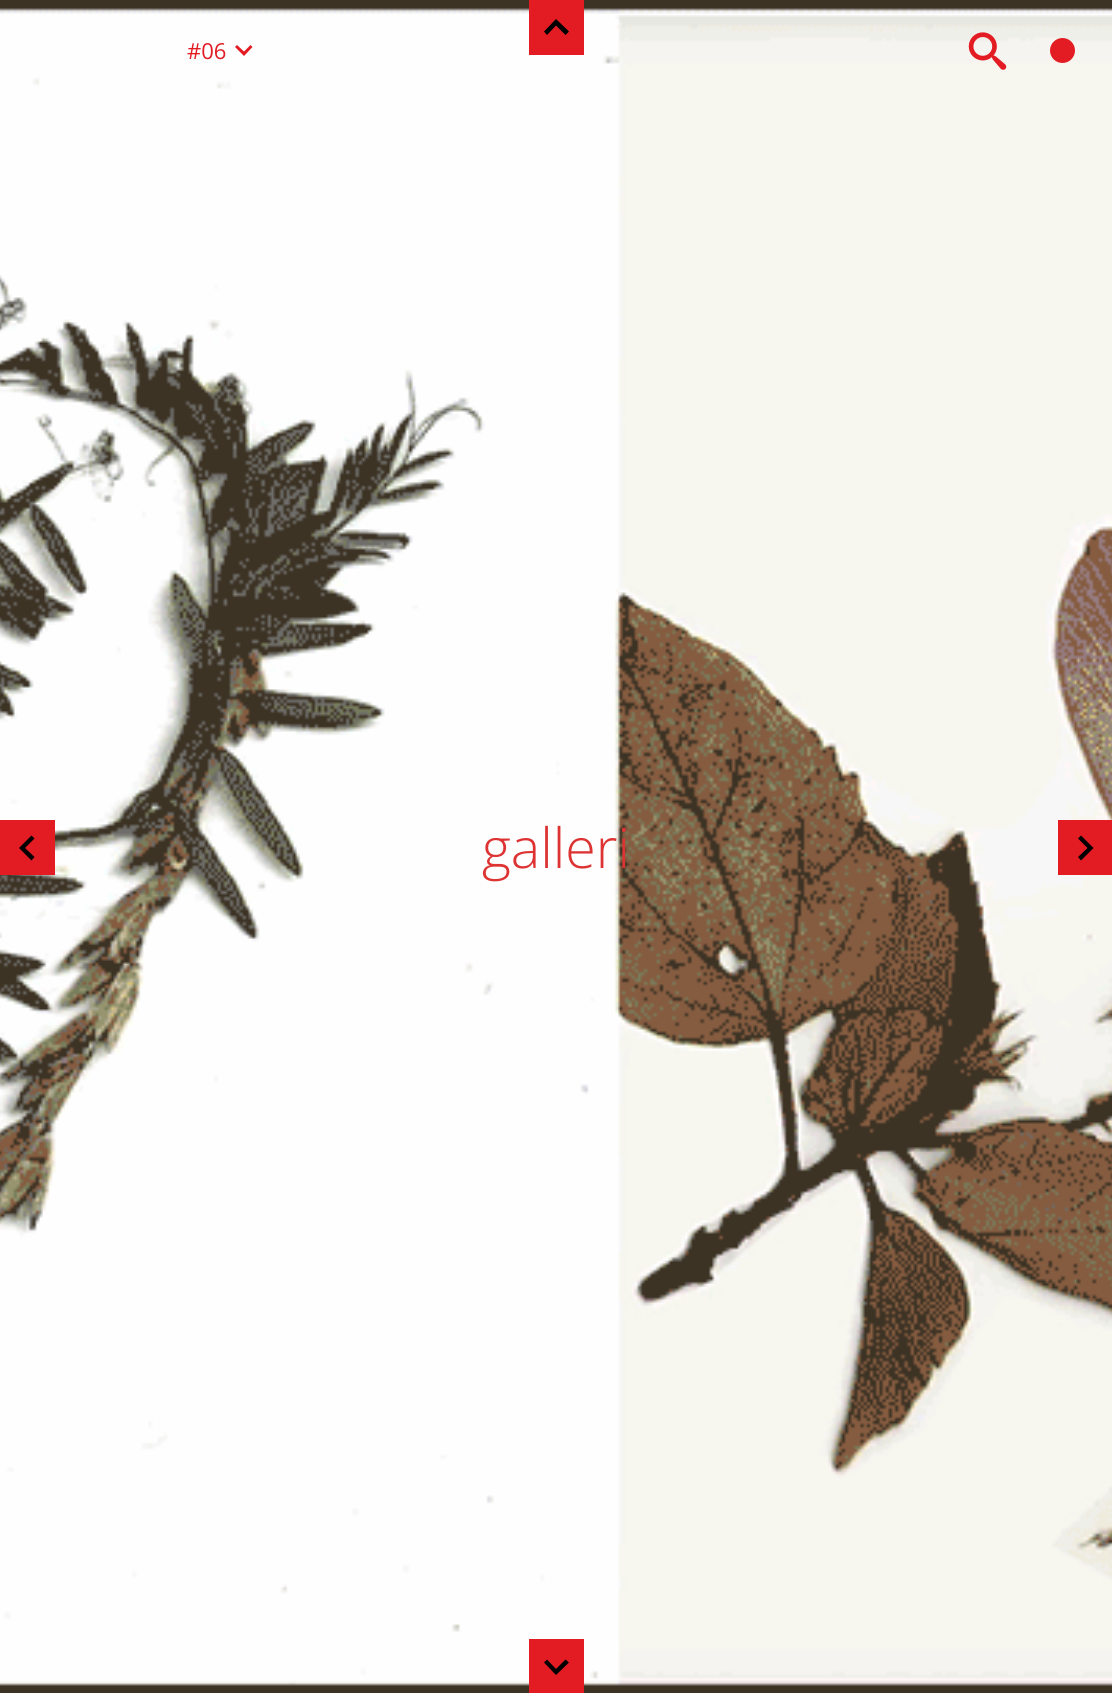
#include <cairo.h>
#include <math.h>
#include <stddef.h>


static void picture(cairo_t *cr, const char *path, double x, double y, double w, double h) {
    cairo_surface_t *image = cairo_image_surface_create_from_png(path);
    cairo_save(cr);
    cairo_set_source_surface(cr, image, x, y);
    cairo_rectangle(cr, x, y, w, h);
    cairo_fill(cr);
    cairo_restore(cr);
    cairo_surface_destroy(image);
}

int main(void) {
    cairo_surface_t *surface = cairo_image_surface_create(CAIRO_FORMAT_RGB24, 1112, 1693);
    cairo_t *cr = cairo_create(surface);
    cairo_font_options_t *options = cairo_font_options_create();
    cairo_font_options_set_hint_metrics(options, CAIRO_HINT_METRICS_OFF);
    cairo_font_options_set_hint_style(options, CAIRO_HINT_STYLE_NONE);
    cairo_set_font_options(cr, options);
    cairo_set_miter_limit(cr, 4);
    cairo_set_source_rgb(cr, 1, 1, 1);
    cairo_paint(cr);
    picture(cr, "img1.png", 0, 0, 1112, 1693);
    cairo_select_font_face(cr, "Open Sans", CAIRO_FONT_SLANT_NORMAL, CAIRO_FONT_WEIGHT_NORMAL);
    cairo_set_font_size(cr, 22);
    cairo_set_source_rgb(cr, 0.89, 0.11, 0.137);
    cairo_move_to(cr, 187, 59);
    cairo_show_text(cr, "#06");
    cairo_new_path(cr);
    cairo_move_to(cr, 252.5, 47);
    cairo_line_to(cr, 250.5, 45);
    cairo_line_to(cr, 244, 51.5);
    cairo_line_to(cr, 237, 45);
    cairo_line_to(cr, 235, 47);
    cairo_line_to(cr, 244, 56);
    cairo_close_path(cr);
    cairo_fill(cr);
    cairo_rectangle(cr, 529, 0, 55, 55);
    cairo_fill(cr);
    cairo_set_source_rgb(cr, 0, 0, 0);
    cairo_new_path(cr);
    cairo_move_to(cr, 544, 31.5);
    cairo_line_to(cr, 547, 35);
    cairo_line_to(cr, 556, 25.5);
    cairo_line_to(cr, 565.5, 35);
    cairo_line_to(cr, 569, 31.5);
    cairo_line_to(cr, 556, 19);
    cairo_close_path(cr);
    cairo_fill(cr);
    cairo_set_source_rgb(cr, 0.89, 0.11, 0.137);
    cairo_rectangle(cr, 0, 820, 55, 55);
    cairo_fill(cr);
    cairo_set_source_rgb(cr, 0, 0, 0);
    cairo_new_path(cr);
    cairo_move_to(cr, 31.5, 860.5);
    cairo_line_to(cr, 34.5, 857);
    cairo_line_to(cr, 25, 848);
    cairo_line_to(cr, 34.5, 838.5);
    cairo_line_to(cr, 31.5, 835.5);
    cairo_line_to(cr, 19, 848);
    cairo_close_path(cr);
    cairo_fill(cr);
    cairo_select_font_face(cr, "Open Sans Light", CAIRO_FONT_SLANT_NORMAL, CAIRO_FONT_WEIGHT_NORMAL);
    cairo_set_font_size(cr, 55.5);
    cairo_set_source_rgb(cr, 0.867, 0.2, 0.2);
    cairo_move_to(cr, 482, 868);
    cairo_show_text(cr, "galleri");
    cairo_set_source_rgb(cr, 0.89, 0.11, 0.137);
    cairo_rectangle(cr, 1058, 820, 54, 55);
    cairo_fill(cr);
    cairo_set_source_rgb(cr, 0, 0, 0);
    cairo_new_path(cr);
    cairo_move_to(cr, 1081, 835.5);
    cairo_line_to(cr, 1078, 838.5);
    cairo_line_to(cr, 1087.5, 848);
    cairo_line_to(cr, 1078, 857);
    cairo_line_to(cr, 1081, 860.5);
    cairo_line_to(cr, 1093.5, 848);
    cairo_close_path(cr);
    cairo_fill(cr);
    cairo_set_source_rgb(cr, 0.89, 0.11, 0.137);
    cairo_rectangle(cr, 529, 1639, 55, 54);
    cairo_fill(cr);
    cairo_set_source_rgb(cr, 0, 0, 0);
    cairo_new_path(cr);
    cairo_move_to(cr, 569, 1662.5);
    cairo_line_to(cr, 565.5, 1659.5);
    cairo_line_to(cr, 556, 1669);
    cairo_line_to(cr, 547, 1659.5);
    cairo_line_to(cr, 544, 1662.5);
    cairo_line_to(cr, 556, 1675);
    cairo_close_path(cr);
    cairo_fill(cr);
    picture(cr, "img2.png", 968, 32, 39, 38);
    cairo_set_source_rgb(cr, 0.89, 0.11, 0.137);
    cairo_arc(cr, 1062.5, 50.5, 11, 0, 2 * M_PI);
    cairo_fill_preserve(cr);
    cairo_set_line_width(cr, 3);
    cairo_stroke(cr);
    cairo_surface_write_to_png(surface, "page.png");
    cairo_font_options_destroy(options);
    cairo_destroy(cr);
    cairo_surface_destroy(surface);
    return 0;
}
